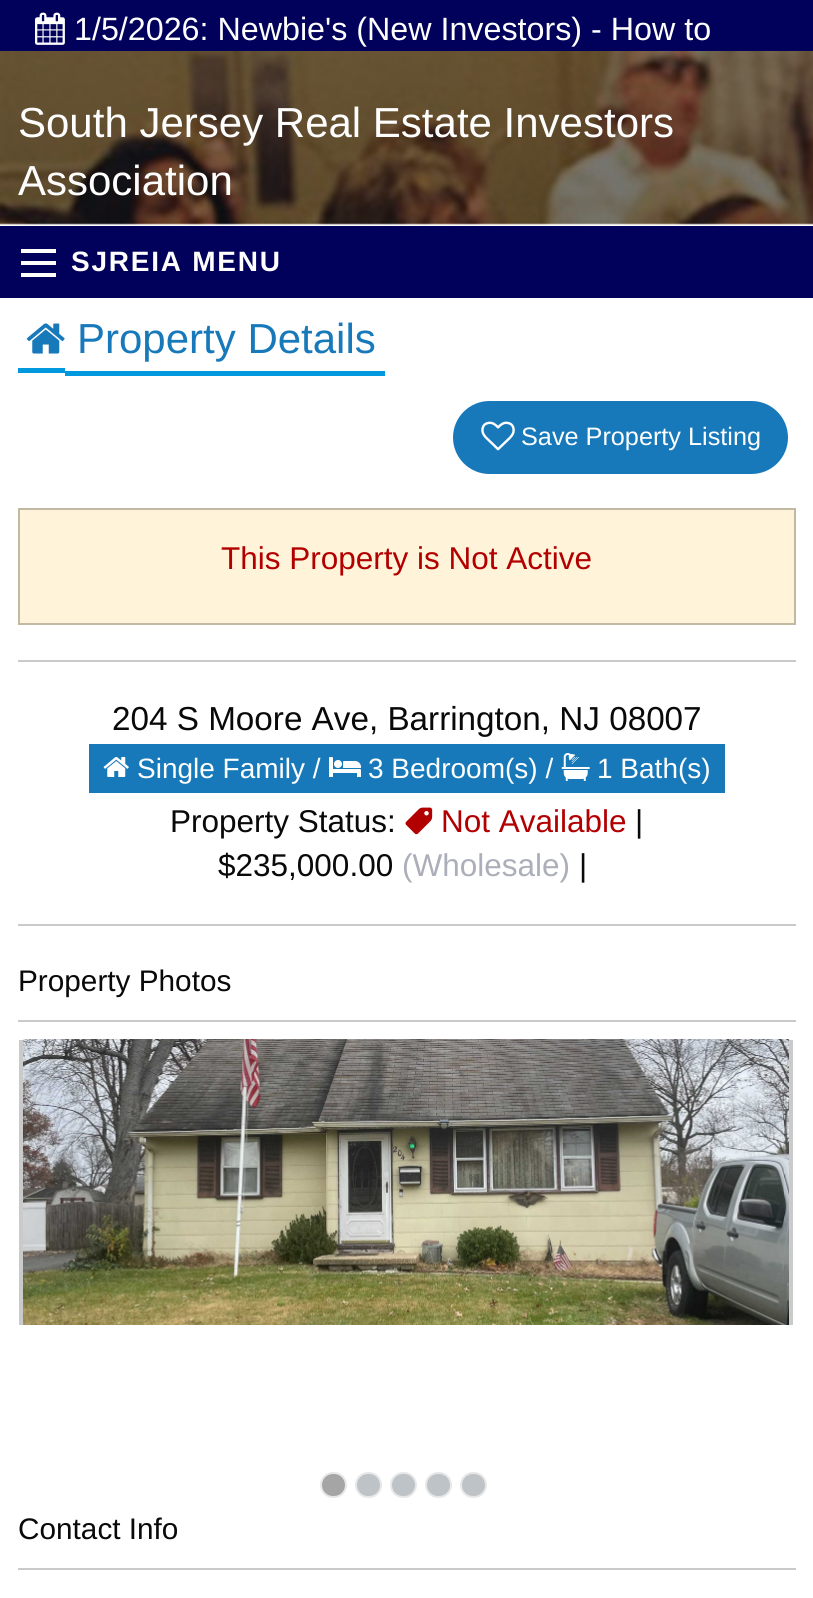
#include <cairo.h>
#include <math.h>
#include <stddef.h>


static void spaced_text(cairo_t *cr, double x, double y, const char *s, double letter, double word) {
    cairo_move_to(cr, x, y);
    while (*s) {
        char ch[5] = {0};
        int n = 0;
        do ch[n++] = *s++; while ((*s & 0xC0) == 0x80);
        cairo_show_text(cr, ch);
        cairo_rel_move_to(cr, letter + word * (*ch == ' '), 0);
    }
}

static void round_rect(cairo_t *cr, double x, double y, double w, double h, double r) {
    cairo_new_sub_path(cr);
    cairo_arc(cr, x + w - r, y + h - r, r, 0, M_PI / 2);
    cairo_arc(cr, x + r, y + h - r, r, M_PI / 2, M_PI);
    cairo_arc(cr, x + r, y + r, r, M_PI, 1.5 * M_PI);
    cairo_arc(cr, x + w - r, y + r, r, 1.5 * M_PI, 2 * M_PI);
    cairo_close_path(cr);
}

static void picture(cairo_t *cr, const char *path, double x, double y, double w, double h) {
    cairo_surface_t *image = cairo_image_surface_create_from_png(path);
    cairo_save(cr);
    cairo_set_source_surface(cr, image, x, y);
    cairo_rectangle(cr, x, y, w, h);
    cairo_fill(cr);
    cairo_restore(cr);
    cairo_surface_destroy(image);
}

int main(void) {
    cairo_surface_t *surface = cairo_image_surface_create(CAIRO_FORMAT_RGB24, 813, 1598);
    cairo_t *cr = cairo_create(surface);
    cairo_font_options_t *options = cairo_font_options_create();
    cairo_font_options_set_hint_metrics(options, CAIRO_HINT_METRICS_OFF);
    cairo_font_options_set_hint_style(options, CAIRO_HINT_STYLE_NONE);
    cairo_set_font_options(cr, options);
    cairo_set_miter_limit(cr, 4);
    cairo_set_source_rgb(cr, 1, 1, 1);
    cairo_paint(cr);
    cairo_set_source_rgb(cr, 0.004, 0.004, 0.357);
    cairo_rectangle(cr, 0, 0, 813, 51);
    cairo_fill(cr);
    picture(cr, "img1.png", 35, 12, 30, 33);
    cairo_select_font_face(cr, "Liberation Sans", CAIRO_FONT_SLANT_NORMAL, CAIRO_FONT_WEIGHT_NORMAL);
    cairo_set_font_size(cr, 32.25);
    cairo_set_source_rgb(cr, 0.996, 0.996, 0.996);
    cairo_move_to(cr, 74, 40);
    cairo_show_text(cr, "1/5/2026: Newbie's (New Investors) - How to");
    picture(cr, "img2.png", 0, 51, 813, 174);
    cairo_set_font_size(cr, 42);
    cairo_move_to(cr, 18, 137);
    cairo_show_text(cr, "South Jersey Real Estate Investors");
    cairo_move_to(cr, 18, 195);
    cairo_show_text(cr, "Association");
    cairo_set_source_rgb(cr, 0.004, 0.004, 0.357);
    cairo_rectangle(cr, 0, 226, 813, 72);
    cairo_fill(cr);
    cairo_set_source_rgb(cr, 0.996, 0.996, 0.996);
    cairo_rectangle(cr, 21, 273, 35, 4);
    cairo_fill(cr);
    cairo_rectangle(cr, 21, 261, 35, 4);
    cairo_fill(cr);
    cairo_rectangle(cr, 21, 249, 35, 4);
    cairo_fill(cr);
    cairo_select_font_face(cr, "Liberation Sans", CAIRO_FONT_SLANT_NORMAL, CAIRO_FONT_WEIGHT_BOLD);
    cairo_set_font_size(cr, 28);
    spaced_text(cr, 71, 271, "SJREIA MENU", 1.75, 0);
    cairo_set_source_rgb(cr, 0, 0.6, 0.867);
    cairo_rectangle(cr, 18, 368, 47, 5);
    cairo_fill(cr);
    cairo_rectangle(cr, 65, 371, 320, 5);
    cairo_fill(cr);
    picture(cr, "img3.png", 26, 323, 39, 31);
    cairo_select_font_face(cr, "Liberation Sans", CAIRO_FONT_SLANT_NORMAL, CAIRO_FONT_WEIGHT_NORMAL);
    cairo_set_font_size(cr, 42);
    cairo_set_source_rgb(cr, 0.09, 0.475, 0.729);
    cairo_move_to(cr, 77, 353);
    cairo_show_text(cr, "Property Details");
    round_rect(cr, 453, 401, 335, 73, 36.5);
    cairo_fill(cr);
    picture(cr, "img4.png", 481, 421, 34, 30);
    cairo_set_font_size(cr, 25.25);
    cairo_set_source_rgb(cr, 0.996, 0.996, 0.996);
    cairo_move_to(cr, 521, 445);
    cairo_show_text(cr, "Save Property Listing");
    cairo_set_source_rgb(cr, 1, 0.953, 0.851);
    cairo_rectangle(cr, 19, 509, 776, 115);
    cairo_fill_preserve(cr);
    cairo_set_source_rgb(cr, 0.761, 0.725, 0.647);
    cairo_stroke(cr);
    cairo_set_font_size(cr, 31.5);
    cairo_set_source_rgb(cr, 0.698, 0, 0);
    cairo_move_to(cr, 221, 569);
    cairo_show_text(cr, "This Property is Not Active");
    cairo_set_source_rgb(cr, 0.792, 0.792, 0.792);
    cairo_rectangle(cr, 18, 660, 778, 2);
    cairo_fill(cr);
    cairo_set_font_size(cr, 33.25);
    cairo_set_source_rgb(cr, 0.039, 0.039, 0.039);
    cairo_move_to(cr, 112, 730);
    cairo_show_text(cr, "204 S Moore Ave, Barrington, NJ 08007");
    cairo_set_source_rgb(cr, 0.09, 0.475, 0.729);
    cairo_rectangle(cr, 89, 744, 636, 49);
    cairo_fill(cr);
    picture(cr, "img5.png", 103, 757, 26, 20);
    cairo_set_font_size(cr, 28);
    cairo_set_source_rgb(cr, 0.996, 0.996, 0.996);
    cairo_move_to(cr, 137, 778);
    cairo_show_text(cr, "Single Family /");
    picture(cr, "img6.png", 329, 757, 32, 20);
    cairo_move_to(cr, 368, 778);
    cairo_show_text(cr, "3 Bedroom(s) /");
    picture(cr, "img7.png", 561, 753, 29, 28);
    cairo_move_to(cr, 597, 778);
    cairo_show_text(cr, "1 Bath(s)");
    picture(cr, "img8.png", 405, 807, 28, 28);
    cairo_set_font_size(cr, 31.5);
    cairo_set_source_rgb(cr, 0.698, 0, 0);
    cairo_move_to(cr, 441, 832);
    cairo_show_text(cr, "Not Available");
    cairo_set_source_rgb(cr, 0.039, 0.039, 0.039);
    cairo_move_to(cr, 635, 832);
    cairo_show_text(cr, "|");
    cairo_move_to(cr, 218, 876);
    cairo_show_text(cr, "$235,000.00");
    cairo_set_source_rgb(cr, 0.675, 0.686, 0.729);
    cairo_move_to(cr, 402, 876);
    cairo_show_text(cr, "(Wholesale)");
    cairo_set_source_rgb(cr, 0.039, 0.039, 0.039);
    cairo_move_to(cr, 170, 832);
    cairo_show_text(cr, "Property Status:");
    cairo_move_to(cr, 579, 876);
    cairo_show_text(cr, "|");
    cairo_set_source_rgb(cr, 0.792, 0.792, 0.792);
    cairo_rectangle(cr, 18, 924, 778, 2);
    cairo_fill(cr);
    cairo_set_source_rgb(cr, 0.647, 0.647, 0.647);
    round_rect(cr, 321, 1473, 25, 24, 12);
    cairo_fill_preserve(cr);
    cairo_set_source_rgb(cr, 0.906, 0.906, 0.906);
    cairo_stroke(cr);
    cairo_set_source_rgb(cr, 0.741, 0.765, 0.78);
    round_rect(cr, 356, 1473, 25, 24, 12);
    cairo_fill_preserve(cr);
    cairo_set_source_rgb(cr, 0.906, 0.906, 0.906);
    cairo_stroke(cr);
    cairo_set_source_rgb(cr, 0.741, 0.765, 0.78);
    round_rect(cr, 391, 1473, 25, 24, 12);
    cairo_fill_preserve(cr);
    cairo_set_source_rgb(cr, 0.906, 0.906, 0.906);
    cairo_stroke(cr);
    cairo_set_source_rgb(cr, 0.741, 0.765, 0.78);
    round_rect(cr, 426, 1473, 25, 24, 12);
    cairo_fill_preserve(cr);
    cairo_set_source_rgb(cr, 0.906, 0.906, 0.906);
    cairo_stroke(cr);
    cairo_set_source_rgb(cr, 0.741, 0.765, 0.78);
    round_rect(cr, 461, 1473, 25, 24, 12);
    cairo_fill_preserve(cr);
    cairo_set_source_rgb(cr, 0.906, 0.906, 0.906);
    cairo_stroke(cr);
    cairo_set_font_size(cr, 29.75);
    cairo_set_source_rgb(cr, 0.039, 0.039, 0.039);
    cairo_move_to(cr, 18, 991);
    cairo_show_text(cr, "Property Photos");
    cairo_set_source_rgb(cr, 0.792, 0.792, 0.792);
    cairo_rectangle(cr, 18, 1020, 778, 2);
    cairo_fill(cr);
    cairo_save(cr);
    cairo_rectangle(cr, 18, 1040, 778, 285);
    cairo_clip(cr);
    cairo_rectangle(cr, 20, 892, 772, 581);
    cairo_stroke(cr);
    cairo_rectangle(cr, 22, 894, 768, 577);
    cairo_stroke(cr);
    cairo_restore(cr);
    picture(cr, "img9.png", 23, 1039, 766, 286);
    cairo_set_source_rgb(cr, 0.039, 0.039, 0.039);
    cairo_move_to(cr, 18, 1539);
    cairo_show_text(cr, "Contact Info");
    cairo_set_source_rgb(cr, 0.792, 0.792, 0.792);
    cairo_rectangle(cr, 18, 1568, 778, 2);
    cairo_fill(cr);
    cairo_surface_write_to_png(surface, "page.png");
    cairo_font_options_destroy(options);
    cairo_destroy(cr);
    cairo_surface_destroy(surface);
    return 0;
}
